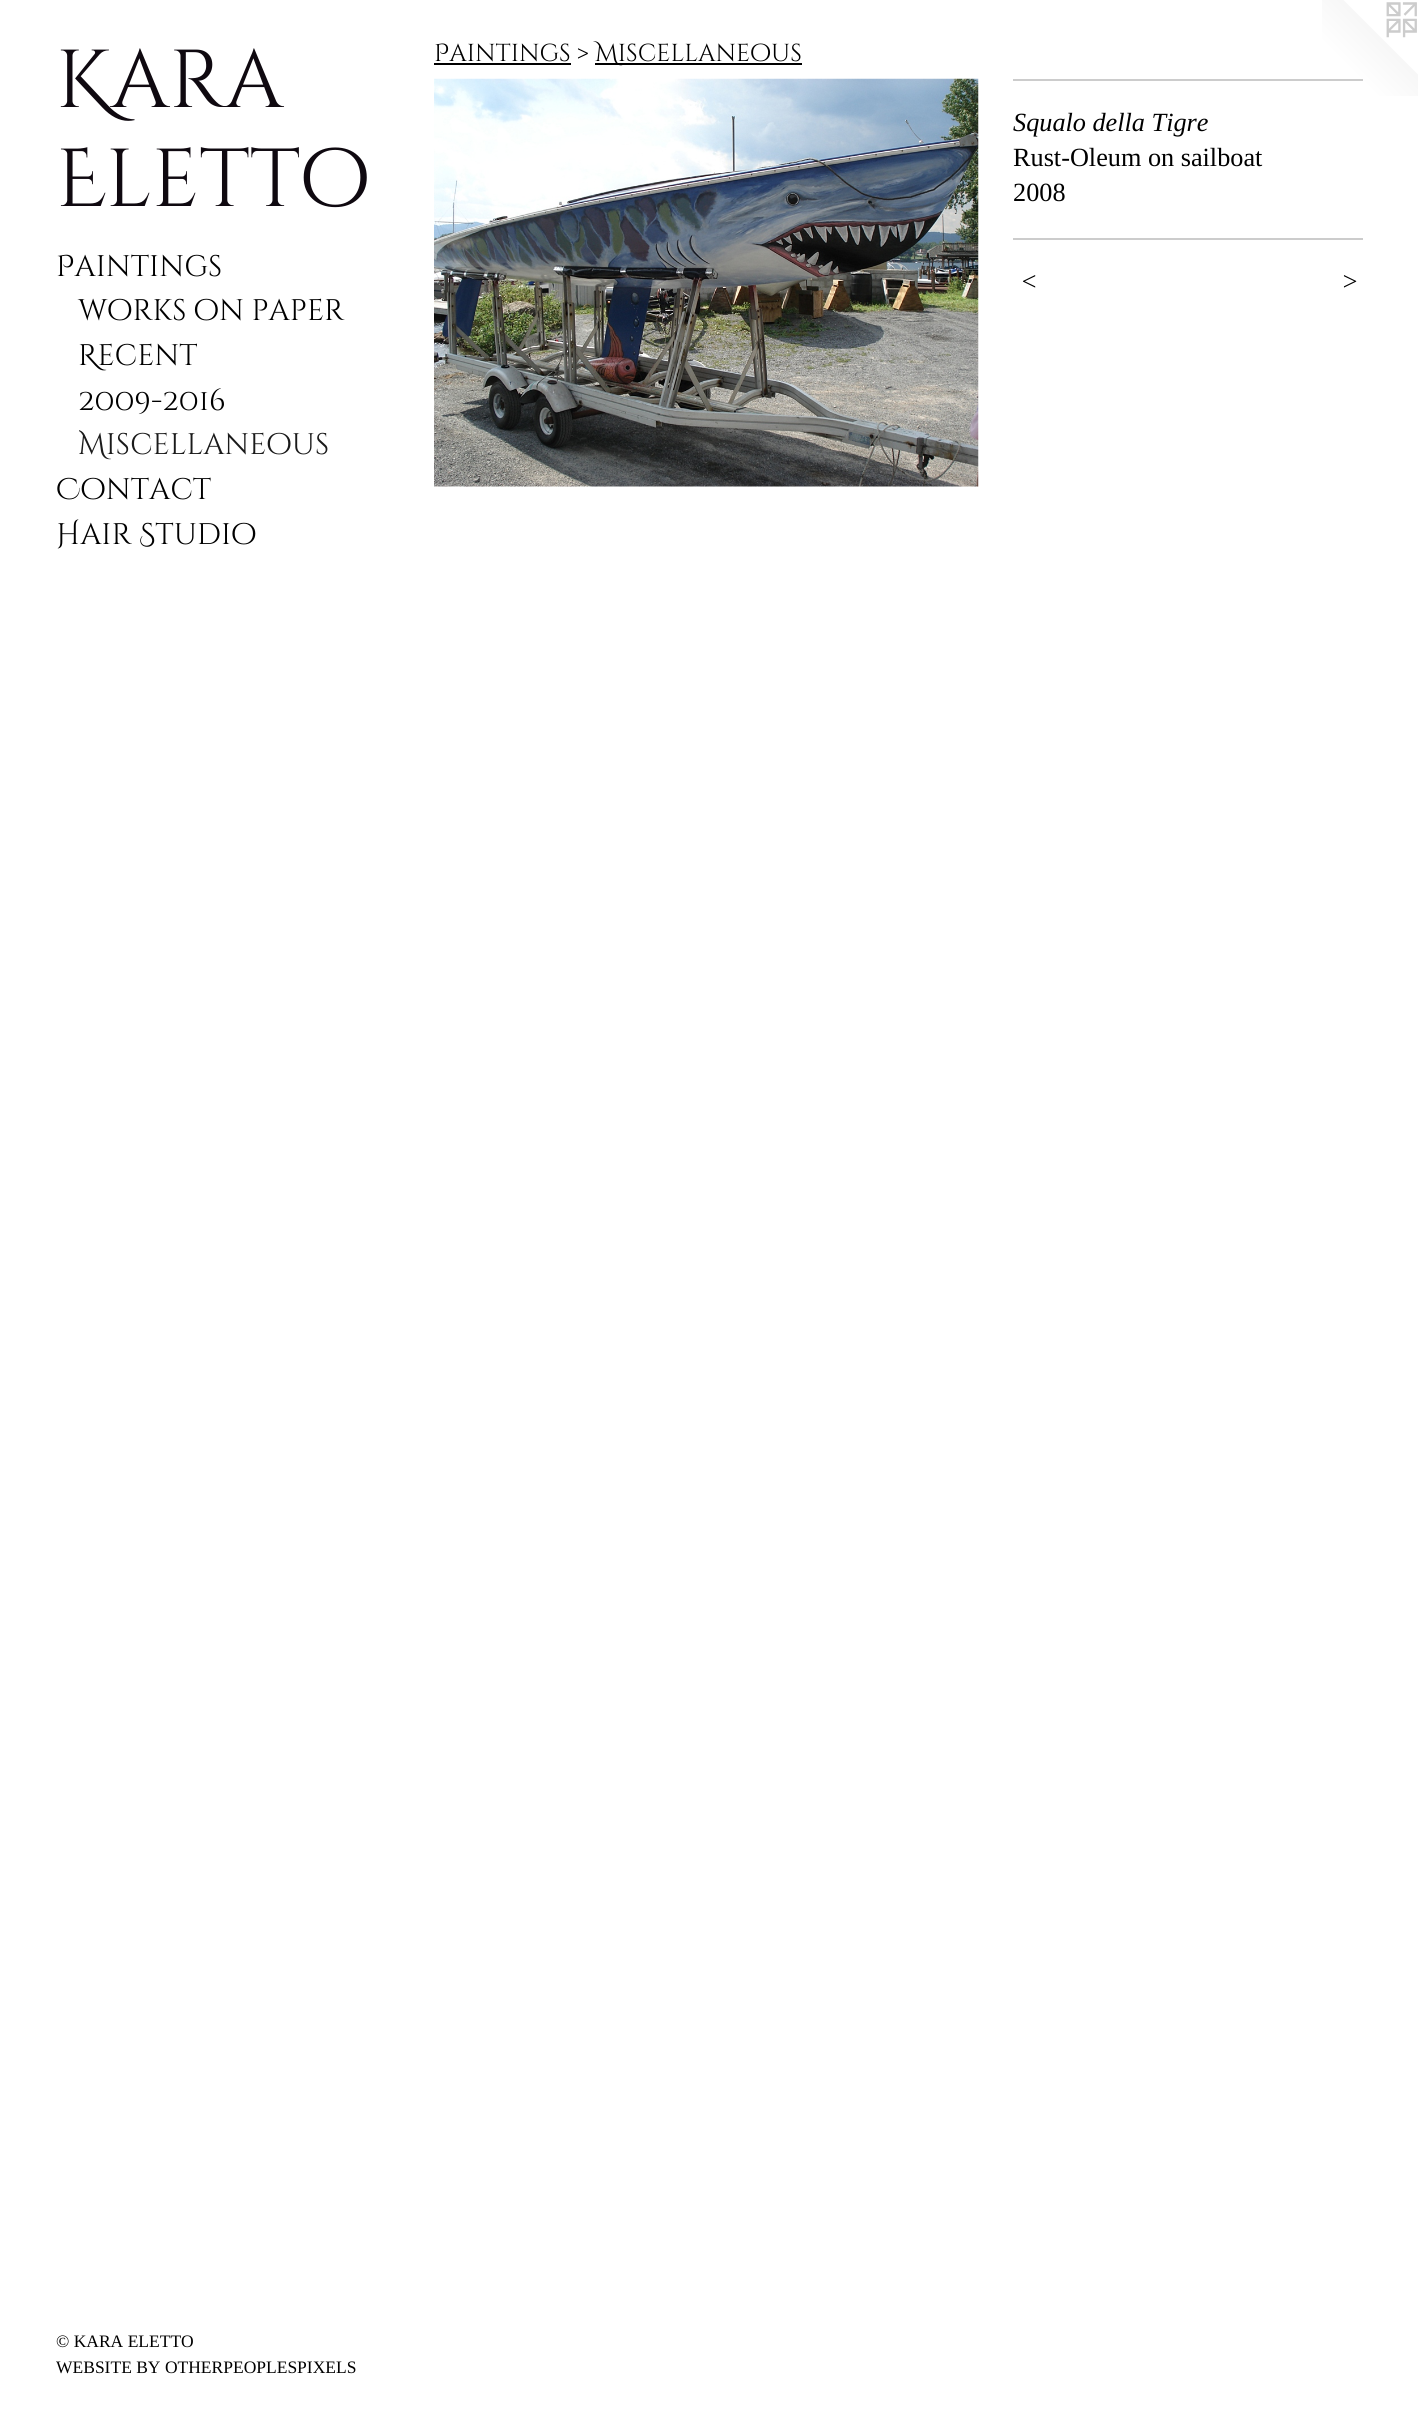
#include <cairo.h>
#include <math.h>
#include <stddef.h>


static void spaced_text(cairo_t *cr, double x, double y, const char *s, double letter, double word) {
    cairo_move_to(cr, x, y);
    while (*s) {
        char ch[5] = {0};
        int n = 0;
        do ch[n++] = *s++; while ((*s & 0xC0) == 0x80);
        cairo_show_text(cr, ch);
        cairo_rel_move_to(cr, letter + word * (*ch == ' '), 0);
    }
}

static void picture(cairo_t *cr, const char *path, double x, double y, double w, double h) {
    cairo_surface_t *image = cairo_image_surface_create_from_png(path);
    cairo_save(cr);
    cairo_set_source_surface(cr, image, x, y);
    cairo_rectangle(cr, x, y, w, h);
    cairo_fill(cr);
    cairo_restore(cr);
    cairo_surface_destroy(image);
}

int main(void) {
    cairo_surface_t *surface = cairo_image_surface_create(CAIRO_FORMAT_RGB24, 1418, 2420);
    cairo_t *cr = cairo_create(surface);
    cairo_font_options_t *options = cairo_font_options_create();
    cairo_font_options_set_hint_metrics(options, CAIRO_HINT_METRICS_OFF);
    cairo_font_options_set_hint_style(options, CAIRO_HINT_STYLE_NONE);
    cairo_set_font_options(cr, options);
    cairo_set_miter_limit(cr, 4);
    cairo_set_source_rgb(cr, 1, 1, 1);
    cairo_paint(cr);
    cairo_select_font_face(cr, "Cinzel Decorative", CAIRO_FONT_SLANT_NORMAL, CAIRO_FONT_WEIGHT_NORMAL);
    cairo_set_font_size(cr, 82);
    cairo_set_source_rgb(cr, 0.059, 0.039, 0.063);
    cairo_move_to(cr, 56, 107);
    cairo_show_text(cr, "Kara");
    cairo_move_to(cr, 56, 206);
    cairo_show_text(cr, "Eletto");
    cairo_set_font_size(cr, 29.75);
    cairo_set_source_rgb(cr, 0, 0, 0);
    cairo_move_to(cr, 56, 276);
    cairo_show_text(cr, "Paintings");
    cairo_move_to(cr, 78, 320);
    cairo_show_text(cr, "works on paper");
    cairo_move_to(cr, 78, 365);
    cairo_show_text(cr, "Recent");
    cairo_move_to(cr, 78, 410);
    cairo_show_text(cr, "2009-2016");
    cairo_save(cr);
    cairo_rectangle(cr, 79, 424, 327, 43);
    cairo_clip(cr);
    cairo_set_source_rgb(cr, 0.102, 0.102, 0.102);
    cairo_move_to(cr, 78, 454);
    cairo_show_text(cr, "Miscellaneous");
    cairo_restore(cr);
    cairo_move_to(cr, 56, 499);
    cairo_show_text(cr, "Contact");
    cairo_move_to(cr, 56, 544);
    cairo_show_text(cr, "Hair Studio");
    cairo_select_font_face(cr, "Liberation Serif", CAIRO_FONT_SLANT_NORMAL, CAIRO_FONT_WEIGHT_NORMAL);
    cairo_set_font_size(cr, 17.5);
    cairo_move_to(cr, 56, 2347);
    cairo_show_text(cr, "© KARA ELETTO");
    cairo_move_to(cr, 56, 2373);
    cairo_show_text(cr, "WEBSITE BY OTHERPEOPLESPIXELS");
    cairo_select_font_face(cr, "Cinzel Decorative", CAIRO_FONT_SLANT_NORMAL, CAIRO_FONT_WEIGHT_NORMAL);
    cairo_set_font_size(cr, 24.5);
    cairo_move_to(cr, 434, 61);
    cairo_show_text(cr, "Paintings >");
    cairo_rectangle(cr, 434, 63, 137, 2);
    cairo_fill(cr);
    cairo_rectangle(cr, 595, 63, 207, 2);
    cairo_fill(cr);
    cairo_move_to(cr, 595, 61);
    cairo_show_text(cr, "Miscellaneous");
    picture(cr, "img1.png", 434, 78, 545, 409);
    picture(cr, "img2.png", 1322, 0, 96, 96);
    cairo_set_source_rgb(cr, 0.8, 0.8, 0.8);
    cairo_rectangle(cr, 1013, 79, 350, 2);
    cairo_fill(cr);
    cairo_select_font_face(cr, "Liberation Serif", CAIRO_FONT_SLANT_ITALIC, CAIRO_FONT_WEIGHT_NORMAL);
    cairo_set_font_size(cr, 26.25);
    cairo_set_source_rgb(cr, 0, 0, 0);
    cairo_move_to(cr, 1013, 131);
    cairo_show_text(cr, "Squalo della Tigre");
    cairo_select_font_face(cr, "Liberation Serif", CAIRO_FONT_SLANT_NORMAL, CAIRO_FONT_WEIGHT_NORMAL);
    cairo_move_to(cr, 1013, 166);
    cairo_show_text(cr, "Rust-Oleum on sailboat");
    cairo_move_to(cr, 1013, 201);
    cairo_show_text(cr, "2008");
    cairo_set_source_rgb(cr, 0.8, 0.8, 0.8);
    cairo_rectangle(cr, 1013, 238, 350, 2);
    cairo_fill(cr);
    cairo_select_font_face(cr, "Liberation Serif", CAIRO_FONT_SLANT_ITALIC, CAIRO_FONT_WEIGHT_NORMAL);
    cairo_set_source_rgb(cr, 0, 0, 0);
    spaced_text(cr, 1020, 290, "<", 2, 0);
    spaced_text(cr, 1341, 290, ">", 2, 0);
    cairo_surface_write_to_png(surface, "page.png");
    cairo_font_options_destroy(options);
    cairo_destroy(cr);
    cairo_surface_destroy(surface);
    return 0;
}
